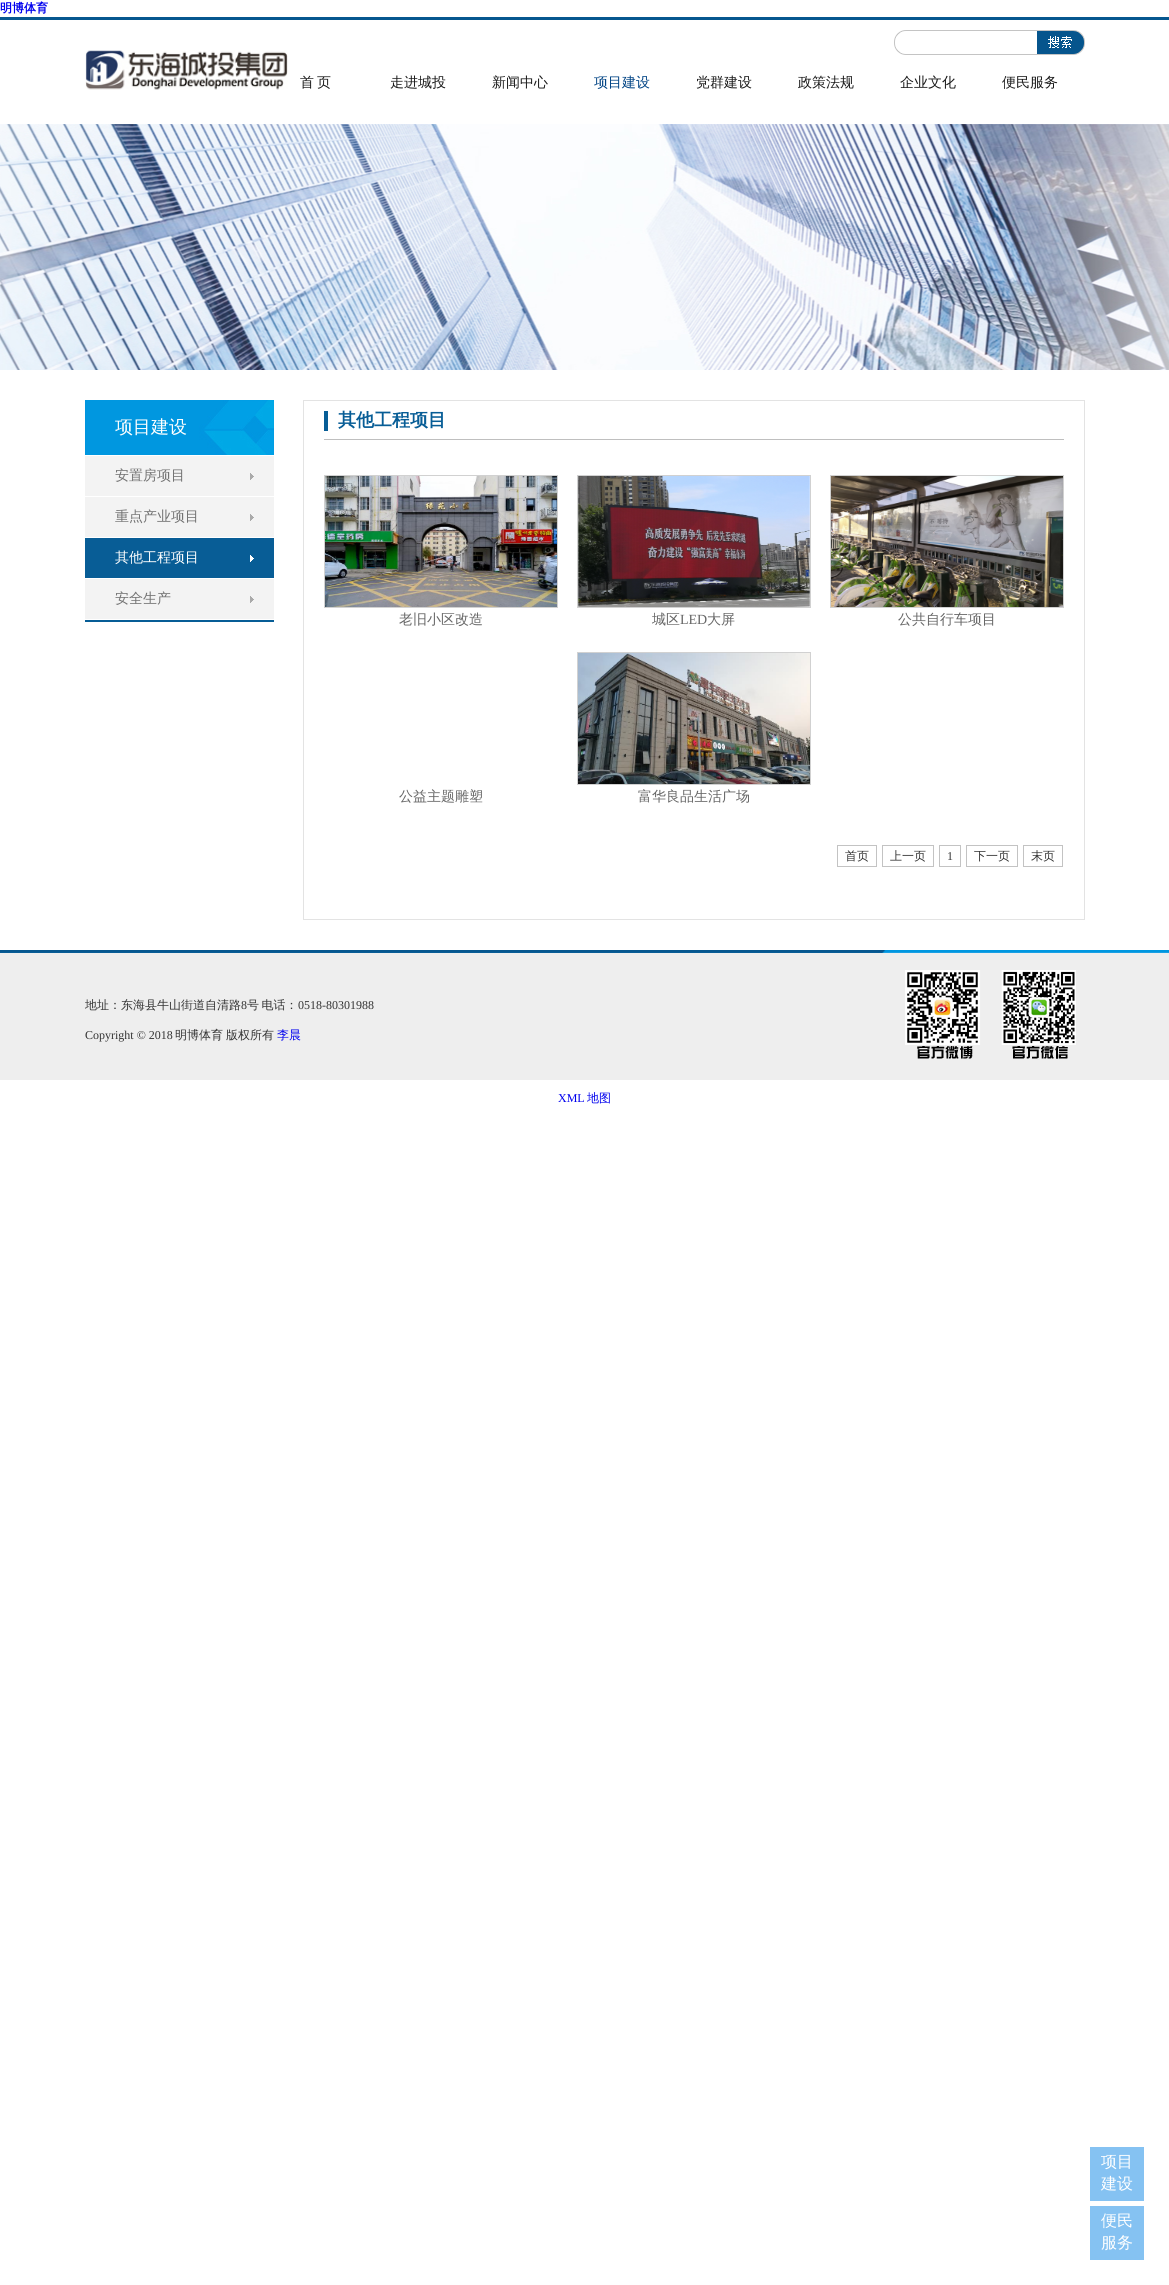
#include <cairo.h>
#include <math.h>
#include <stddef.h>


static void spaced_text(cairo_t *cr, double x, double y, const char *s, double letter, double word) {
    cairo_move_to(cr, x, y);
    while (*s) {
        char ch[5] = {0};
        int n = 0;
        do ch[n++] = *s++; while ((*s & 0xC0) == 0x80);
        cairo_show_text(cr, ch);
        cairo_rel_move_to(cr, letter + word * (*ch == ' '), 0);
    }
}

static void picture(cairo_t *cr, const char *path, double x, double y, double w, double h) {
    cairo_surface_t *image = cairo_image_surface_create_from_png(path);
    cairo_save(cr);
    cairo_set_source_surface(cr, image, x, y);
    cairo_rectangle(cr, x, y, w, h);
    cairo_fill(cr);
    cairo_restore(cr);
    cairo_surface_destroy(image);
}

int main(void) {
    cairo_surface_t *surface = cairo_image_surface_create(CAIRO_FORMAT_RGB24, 1169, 2285);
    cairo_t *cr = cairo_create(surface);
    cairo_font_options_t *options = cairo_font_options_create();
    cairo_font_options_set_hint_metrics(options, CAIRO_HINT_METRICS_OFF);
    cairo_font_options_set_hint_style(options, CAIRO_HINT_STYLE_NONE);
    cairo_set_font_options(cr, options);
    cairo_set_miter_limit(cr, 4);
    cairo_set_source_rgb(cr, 1, 1, 1);
    cairo_paint(cr);
    cairo_select_font_face(cr, "WenQuanYi Zen Hei", CAIRO_FONT_SLANT_NORMAL, CAIRO_FONT_WEIGHT_BOLD);
    cairo_set_font_size(cr, 12);
    cairo_set_source_rgb(cr, 0, 0, 0.933);
    cairo_move_to(cr, 0, 12);
    cairo_show_text(cr, "明博体育");
    cairo_set_source_rgb(cr, 0.024, 0.341, 0.561);
    cairo_rectangle(cr, 0, 17, 1169, 3);
    cairo_fill(cr);
    picture(cr, "img1.png", 894, 30, 143, 25);
    picture(cr, "img2.png", 1037, 30, 48, 25);
    picture(cr, "img3.png", 85, 50, 203, 40);
    cairo_select_font_face(cr, "WenQuanYi Zen Hei Medium", CAIRO_FONT_SLANT_NORMAL, CAIRO_FONT_WEIGHT_NORMAL);
    cairo_set_font_size(cr, 14);
    cairo_set_source_rgb(cr, 0.102, 0.102, 0.102);
    cairo_move_to(cr, 300, 87);
    cairo_show_text(cr, "首");
    cairo_move_to(cr, 317, 87);
    cairo_show_text(cr, "页");
    cairo_move_to(cr, 390, 87);
    cairo_show_text(cr, "走进城投");
    cairo_move_to(cr, 492, 87);
    cairo_show_text(cr, "新闻中心");
    cairo_set_source_rgb(cr, 0, 0.263, 0.518);
    cairo_move_to(cr, 594, 87);
    cairo_show_text(cr, "项目建设");
    cairo_set_source_rgb(cr, 0.102, 0.102, 0.102);
    cairo_move_to(cr, 696, 87);
    cairo_show_text(cr, "党群建设");
    cairo_move_to(cr, 798, 87);
    cairo_show_text(cr, "政策法规");
    cairo_move_to(cr, 900, 87);
    cairo_show_text(cr, "企业文化");
    cairo_move_to(cr, 1002, 87);
    cairo_show_text(cr, "便民服务");
    picture(cr, "img4.png", 0, 124, 1169, 246);
    picture(cr, "img5.png", 85, 400, 189, 55);
    cairo_set_font_size(cr, 18);
    cairo_set_source_rgb(cr, 1, 1, 1);
    cairo_move_to(cr, 115, 433);
    cairo_show_text(cr, "项目建设");
    cairo_set_source_rgb(cr, 0.031, 0.365, 0.588);
    cairo_rectangle(cr, 85, 620, 189, 2);
    cairo_fill(cr);
    picture(cr, "img6.png", 85, 456, 189, 40);
    cairo_set_font_size(cr, 14);
    cairo_set_source_rgb(cr, 0.447, 0.447, 0.447);
    cairo_move_to(cr, 115, 480);
    cairo_show_text(cr, "安置房项目");
    picture(cr, "img6.png", 85, 497, 189, 40);
    cairo_move_to(cr, 115, 521);
    cairo_show_text(cr, "重点产业项目");
    picture(cr, "img7.png", 85, 538, 189, 40);
    cairo_set_source_rgb(cr, 1, 1, 1);
    cairo_move_to(cr, 115, 562);
    cairo_show_text(cr, "其他工程项目");
    picture(cr, "img6.png", 85, 579, 189, 40);
    cairo_set_source_rgb(cr, 0.447, 0.447, 0.447);
    cairo_move_to(cr, 115, 603);
    cairo_show_text(cr, "安全生产");
    cairo_rectangle(cr, 303.5, 400.5, 781, 519);
    cairo_set_source_rgb(cr, 0.89, 0.89, 0.89);
    cairo_set_line_width(cr, 1);
    cairo_stroke(cr);
    cairo_set_source_rgb(cr, 0.749, 0.749, 0.749);
    cairo_rectangle(cr, 324, 439, 740, 1);
    cairo_fill(cr);
    cairo_set_source_rgb(cr, 0.031, 0.365, 0.588);
    cairo_rectangle(cr, 324, 411, 4, 20);
    cairo_fill(cr);
    cairo_select_font_face(cr, "WenQuanYi Zen Hei", CAIRO_FONT_SLANT_NORMAL, CAIRO_FONT_WEIGHT_BOLD);
    cairo_set_font_size(cr, 18);
    cairo_move_to(cr, 338, 426);
    cairo_show_text(cr, "其他工程项目");
    cairo_rectangle(cr, 324.5, 475.5, 233, 132);
    cairo_set_source_rgb(cr, 0.82, 0.82, 0.82);
    cairo_stroke(cr);
    picture(cr, "img8.png", 325, 476, 232, 131);
    cairo_select_font_face(cr, "WenQuanYi Zen Hei Medium", CAIRO_FONT_SLANT_NORMAL, CAIRO_FONT_WEIGHT_NORMAL);
    cairo_set_font_size(cr, 14);
    cairo_set_source_rgb(cr, 0.4, 0.4, 0.4);
    cairo_move_to(cr, 399, 624);
    cairo_show_text(cr, "老旧小区改造");
    cairo_rectangle(cr, 577.5, 475.5, 233, 132);
    cairo_set_source_rgb(cr, 0.82, 0.82, 0.82);
    cairo_stroke(cr);
    picture(cr, "img9.png", 578, 476, 232, 131);
    cairo_set_source_rgb(cr, 0.4, 0.4, 0.4);
    cairo_move_to(cr, 652, 624);
    cairo_show_text(cr, "城区");
    cairo_select_font_face(cr, "Liberation Serif", CAIRO_FONT_SLANT_NORMAL, CAIRO_FONT_WEIGHT_NORMAL);
    cairo_move_to(cr, 680, 624);
    cairo_show_text(cr, "LED");
    cairo_select_font_face(cr, "WenQuanYi Zen Hei Medium", CAIRO_FONT_SLANT_NORMAL, CAIRO_FONT_WEIGHT_NORMAL);
    cairo_move_to(cr, 707, 624);
    cairo_show_text(cr, "大屏");
    cairo_rectangle(cr, 830.5, 475.5, 233, 132);
    cairo_set_source_rgb(cr, 0.82, 0.82, 0.82);
    cairo_stroke(cr);
    picture(cr, "img10.png", 831, 476, 232, 131);
    cairo_set_source_rgb(cr, 0.4, 0.4, 0.4);
    cairo_move_to(cr, 898, 624);
    cairo_show_text(cr, "公共自行车项目");
    cairo_move_to(cr, 399, 801);
    cairo_show_text(cr, "公益主题雕塑");
    cairo_rectangle(cr, 577.5, 652.5, 233, 132);
    cairo_set_source_rgb(cr, 0.82, 0.82, 0.82);
    cairo_stroke(cr);
    picture(cr, "img11.png", 578, 653, 232, 131);
    cairo_set_source_rgb(cr, 0.4, 0.4, 0.4);
    cairo_move_to(cr, 638, 801);
    cairo_show_text(cr, "富华良品生活广场");
    cairo_rectangle(cr, 837.5, 845.5, 39, 21);
    cairo_set_source_rgb(cr, 0.765, 0.765, 0.765);
    cairo_stroke(cr);
    cairo_set_font_size(cr, 12);
    cairo_set_source_rgb(cr, 0.2, 0.2, 0.2);
    cairo_move_to(cr, 845, 860);
    cairo_show_text(cr, "首页");
    cairo_rectangle(cr, 882.5, 845.5, 51, 21);
    cairo_set_source_rgb(cr, 0.765, 0.765, 0.765);
    cairo_stroke(cr);
    cairo_set_source_rgb(cr, 0.2, 0.2, 0.2);
    cairo_move_to(cr, 890, 860);
    cairo_show_text(cr, "上一页");
    cairo_rectangle(cr, 939.5, 845.5, 21, 21);
    cairo_set_source_rgb(cr, 0.765, 0.765, 0.765);
    cairo_stroke(cr);
    cairo_select_font_face(cr, "Liberation Serif", CAIRO_FONT_SLANT_NORMAL, CAIRO_FONT_WEIGHT_NORMAL);
    cairo_set_source_rgb(cr, 0.2, 0.2, 0.2);
    cairo_move_to(cr, 947, 860);
    cairo_show_text(cr, "1");
    cairo_rectangle(cr, 966.5, 845.5, 51, 21);
    cairo_set_source_rgb(cr, 0.765, 0.765, 0.765);
    cairo_stroke(cr);
    cairo_select_font_face(cr, "WenQuanYi Zen Hei Medium", CAIRO_FONT_SLANT_NORMAL, CAIRO_FONT_WEIGHT_NORMAL);
    cairo_set_source_rgb(cr, 0.2, 0.2, 0.2);
    cairo_move_to(cr, 974, 860);
    cairo_show_text(cr, "下一页");
    cairo_rectangle(cr, 1023.5, 845.5, 39, 21);
    cairo_set_source_rgb(cr, 0.765, 0.765, 0.765);
    cairo_stroke(cr);
    cairo_set_source_rgb(cr, 0.2, 0.2, 0.2);
    cairo_move_to(cr, 1031, 860);
    cairo_show_text(cr, "末页");
    cairo_set_source_rgb(cr, 0.933, 0.933, 0.933);
    cairo_rectangle(cr, 0, 953, 1169, 127);
    cairo_fill(cr);
    picture(cr, "img12.png", 0, 950, 1169, 3);
    cairo_set_source_rgb(cr, 0.2, 0.2, 0.2);
    cairo_move_to(cr, 85, 1009);
    cairo_show_text(cr, "地址：东海县牛山街道自清路");
    cairo_select_font_face(cr, "Liberation Serif", CAIRO_FONT_SLANT_NORMAL, CAIRO_FONT_WEIGHT_NORMAL);
    cairo_move_to(cr, 241, 1009);
    cairo_show_text(cr, "8");
    cairo_select_font_face(cr, "WenQuanYi Zen Hei Medium", CAIRO_FONT_SLANT_NORMAL, CAIRO_FONT_WEIGHT_NORMAL);
    spaced_text(cr, 247, 1009, "号 电话：", 0, -1);
    cairo_select_font_face(cr, "Liberation Serif", CAIRO_FONT_SLANT_NORMAL, CAIRO_FONT_WEIGHT_NORMAL);
    cairo_move_to(cr, 298, 1009);
    cairo_show_text(cr, "0518-80301988");
    picture(cr, "img13.png", 905, 970, 171, 89);
    cairo_move_to(cr, 85, 1039);
    cairo_show_text(cr, "Copyright © 2018");
    cairo_select_font_face(cr, "WenQuanYi Zen Hei Medium", CAIRO_FONT_SLANT_NORMAL, CAIRO_FONT_WEIGHT_NORMAL);
    cairo_move_to(cr, 175, 1039);
    cairo_show_text(cr, "明博体育");
    cairo_move_to(cr, 226, 1039);
    cairo_show_text(cr, "版权所有");
    cairo_set_source_rgb(cr, 0, 0, 0.933);
    cairo_move_to(cr, 277, 1039);
    cairo_show_text(cr, "李晨");
    cairo_select_font_face(cr, "Liberation Serif", CAIRO_FONT_SLANT_NORMAL, CAIRO_FONT_WEIGHT_NORMAL);
    cairo_move_to(cr, 558, 1102);
    cairo_show_text(cr, "XML");
    cairo_select_font_face(cr, "WenQuanYi Zen Hei Medium", CAIRO_FONT_SLANT_NORMAL, CAIRO_FONT_WEIGHT_NORMAL);
    cairo_move_to(cr, 587, 1102);
    cairo_show_text(cr, "地图");
    cairo_set_source_rgb(cr, 0.522, 0.761, 0.949);
    cairo_rectangle(cr, 1090, 2147, 54, 54);
    cairo_fill(cr);
    cairo_set_font_size(cr, 16);
    cairo_set_source_rgb(cr, 1, 1, 1);
    cairo_move_to(cr, 1101, 2167);
    cairo_show_text(cr, "项目");
    cairo_move_to(cr, 1101, 2189);
    cairo_show_text(cr, "建设");
    cairo_set_source_rgb(cr, 0.522, 0.761, 0.949);
    cairo_rectangle(cr, 1090, 2206, 54, 54);
    cairo_fill(cr);
    cairo_set_source_rgb(cr, 1, 1, 1);
    cairo_move_to(cr, 1101, 2226);
    cairo_show_text(cr, "便民");
    cairo_move_to(cr, 1101, 2248);
    cairo_show_text(cr, "服务");
    cairo_surface_write_to_png(surface, "page.png");
    cairo_font_options_destroy(options);
    cairo_destroy(cr);
    cairo_surface_destroy(surface);
    return 0;
}
